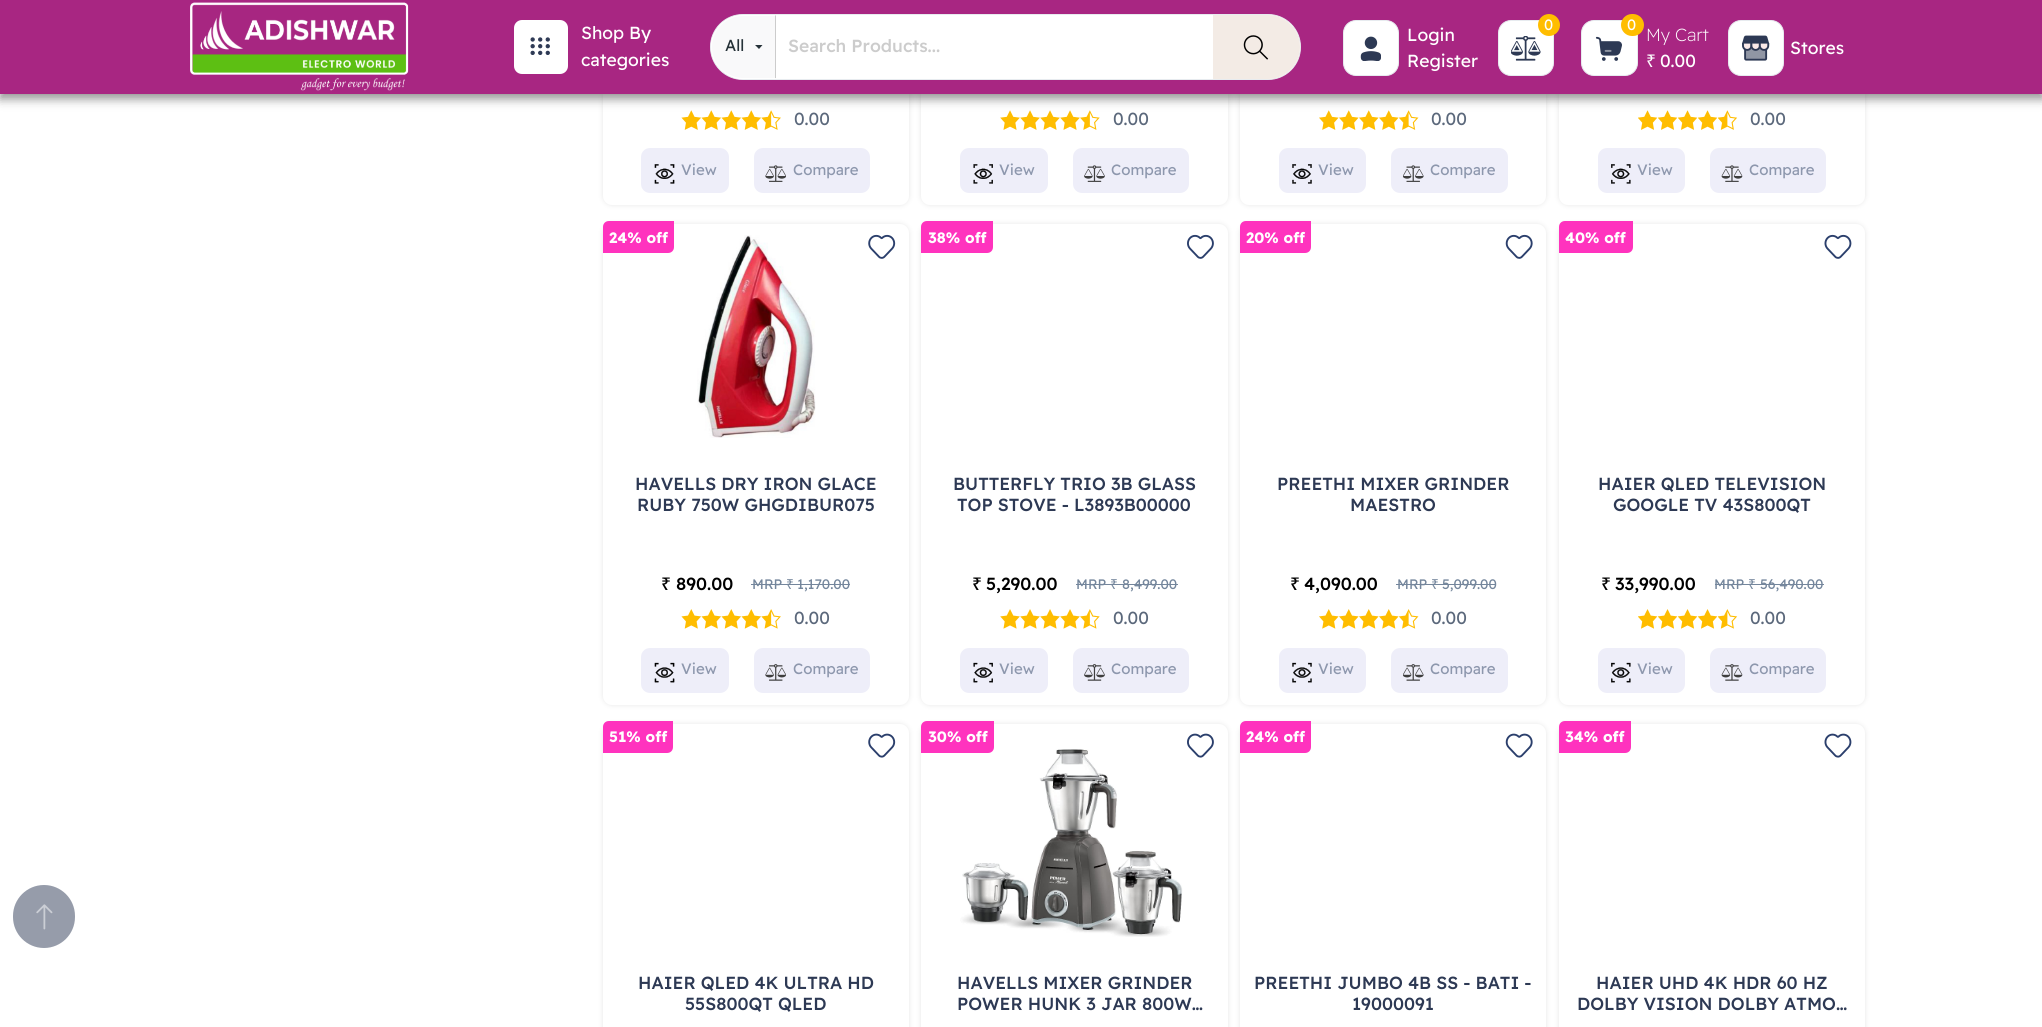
#include <cairo.h>
#include <math.h>
#include <stddef.h>


static void round_rect(cairo_t *cr, double x, double y, double w, double h, double r) {
    cairo_new_sub_path(cr);
    cairo_arc(cr, x + w - r, y + h - r, r, 0, M_PI / 2);
    cairo_arc(cr, x + r, y + h - r, r, M_PI / 2, M_PI);
    cairo_arc(cr, x + r, y + r, r, M_PI, 1.5 * M_PI);
    cairo_arc(cr, x + w - r, y + r, r, 1.5 * M_PI, 2 * M_PI);
    cairo_close_path(cr);
}

static void shadow(cairo_t *cr, double x, double y, double w, double h, double r, double blur, double alpha) {
    cairo_push_group_with_content(cr, CAIRO_CONTENT_ALPHA);
    cairo_set_operator(cr, CAIRO_OPERATOR_SOURCE);
    for (int i = 15; i >= -15 && fmin(w, h) + blur * i / 3 > 0; i -= 2) {
        double e = blur * i / 6;
        cairo_set_source_rgba(cr, 0, 0, 0, alpha * erfc((i - 1) / 8.5) / 2);
        round_rect(cr, x - e, y - e, w + 2 * e, h + 2 * e, fmax(0, fmin(r + e + blur * .6, fmin(w, h) / 2 + e)));
        cairo_fill(cr);
    }
    cairo_pattern_t *soft = cairo_pop_group(cr);
    cairo_mask(cr, soft);
    cairo_pattern_destroy(soft);
}

static void picture(cairo_t *cr, const char *path, double x, double y, double w, double h) {
    cairo_surface_t *image = cairo_image_surface_create_from_png(path);
    cairo_save(cr);
    cairo_set_source_surface(cr, image, x, y);
    cairo_rectangle(cr, x, y, w, h);
    cairo_fill(cr);
    cairo_restore(cr);
    cairo_surface_destroy(image);
}

int main(void) {
    cairo_surface_t *surface = cairo_image_surface_create(CAIRO_FORMAT_RGB24, 2042, 1027);
    cairo_t *cr = cairo_create(surface);
    cairo_font_options_t *options = cairo_font_options_create();
    cairo_font_options_set_hint_metrics(options, CAIRO_HINT_METRICS_OFF);
    cairo_font_options_set_hint_style(options, CAIRO_HINT_STYLE_NONE);
    cairo_set_font_options(cr, options);
    cairo_set_miter_limit(cr, 4);
    cairo_set_source_rgb(cr, 1, 1, 1);
    cairo_paint(cr);
    cairo_set_source_rgb(cr, 0.902, 0.902, 0.902);
    shadow(cr, 603, -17, 306, 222, 9, 2.5, 1);
    cairo_set_source_rgb(cr, 1, 1, 1);
    round_rect(cr, 603, -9, 306, 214, 9);
    cairo_fill(cr);
    picture(cr, "img9.png", 681, 110, 20, 20);
    picture(cr, "img9.png", 701, 110, 20, 20);
    picture(cr, "img9.png", 721, 110, 20, 20);
    picture(cr, "img9.png", 741, 110, 20, 20);
    picture(cr, "img10.png", 761, 110, 20, 20);
    cairo_set_source_rgb(cr, 0.902, 0.902, 0.902);
    shadow(cr, 921, -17, 307, 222, 9, 2.5, 1);
    cairo_set_source_rgb(cr, 1, 1, 1);
    round_rect(cr, 921, -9, 307, 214, 9);
    cairo_fill(cr);
    picture(cr, "img13.png", 1000, 110, 20, 20);
    picture(cr, "img13.png", 1020, 110, 20, 20);
    picture(cr, "img13.png", 1040, 110, 20, 20);
    picture(cr, "img13.png", 1060, 110, 20, 20);
    picture(cr, "img14.png", 1080, 110, 20, 20);
    cairo_set_source_rgb(cr, 0.902, 0.902, 0.902);
    shadow(cr, 1240, -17, 306, 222, 9, 2.5, 1);
    cairo_set_source_rgb(cr, 1, 1, 1);
    round_rect(cr, 1240, -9, 306, 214, 9);
    cairo_fill(cr);
    picture(cr, "img17.png", 1319, 110, 20, 20);
    picture(cr, "img17.png", 1339, 110, 20, 20);
    picture(cr, "img17.png", 1359, 110, 20, 20);
    picture(cr, "img17.png", 1379, 110, 20, 20);
    picture(cr, "img18.png", 1399, 110, 20, 20);
    cairo_set_source_rgb(cr, 0.902, 0.902, 0.902);
    shadow(cr, 1559, -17, 306, 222, 9, 2.5, 1);
    cairo_set_source_rgb(cr, 1, 1, 1);
    round_rect(cr, 1559, -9, 306, 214, 9);
    cairo_fill(cr);
    picture(cr, "img21.png", 1638, 110, 20, 20);
    picture(cr, "img21.png", 1658, 110, 20, 20);
    picture(cr, "img21.png", 1678, 110, 20, 20);
    picture(cr, "img21.png", 1698, 110, 20, 20);
    picture(cr, "img22.png", 1718, 110, 19, 20);
    cairo_set_source_rgb(cr, 0.416, 0.416, 0.416);
    shadow(cr, 0, 5, 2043, 94, 0, 5, 0.72);
    cairo_set_source_rgb(cr, 0.659, 0.149, 0.51);
    cairo_rectangle(cr, 0, 0, 2042, 94);
    cairo_fill(cr);
    picture(cr, "img1.png", 190, 2, 219, 89);
    picture(cr, "img2.png", 514, 20, 54, 54);
    cairo_select_font_face(cr, "Readex Pro", CAIRO_FONT_SLANT_NORMAL, CAIRO_FONT_WEIGHT_NORMAL);
    cairo_set_font_size(cr, 17.5);
    cairo_set_source_rgb(cr, 1, 1, 1);
    cairo_move_to(cr, 581, 39);
    cairo_show_text(cr, "Shop By");
    cairo_move_to(cr, 581, 66);
    cairo_show_text(cr, "categories");
    round_rect(cr, 710.5, 14.5, 590, 65, 32.5);
    cairo_fill_preserve(cr);
    cairo_set_source_rgb(cr, 0.906, 0.918, 0.937);
    cairo_set_line_width(cr, 1);
    cairo_stroke(cr);
    cairo_set_source_rgb(cr, 0.973, 0.976, 0.98);
    cairo_new_path(cr);
    cairo_move_to(cr, 743, 15);
    cairo_line_to(cr, 776, 15);
    cairo_line_to(cr, 776, 79);
    cairo_line_to(cr, 743, 79);
    cairo_curve_to(cr, 725.5, 79, 711, 64.5, 711, 47);
    cairo_curve_to(cr, 711, 29.5, 725.5, 15, 743, 15);
    cairo_close_path(cr);
    cairo_fill(cr);
    cairo_set_source_rgb(cr, 1, 1, 1);
    cairo_new_path(cr);
    cairo_move_to(cr, 743, 15);
    cairo_curve_to(cr, 734, 15, 726, 19, 721, 24);
    cairo_line_to(cr, 721, 25);
    cairo_curve_to(cr, 727, 19, 735, 16, 743, 16);
    cairo_line_to(cr, 775, 16);
    cairo_line_to(cr, 776, 15);
    cairo_close_path(cr);
    cairo_fill(cr);
    cairo_set_source_rgb(cr, 0.8, 0.8, 0.8);
    cairo_new_path(cr);
    cairo_move_to(cr, 776, 15);
    cairo_line_to(cr, 776, 78);
    cairo_line_to(cr, 775, 78);
    cairo_line_to(cr, 775, 16);
    cairo_close_path(cr);
    cairo_fill(cr);
    cairo_set_source_rgb(cr, 1, 1, 1);
    cairo_new_path(cr);
    cairo_move_to(cr, 739, 79);
    cairo_curve_to(cr, 732, 78, 726, 74, 721, 69);
    cairo_curve_to(cr, 727, 74, 734, 78, 743, 78);
    cairo_line_to(cr, 775, 78);
    cairo_line_to(cr, 776, 79);
    cairo_close_path(cr);
    cairo_fill(cr);
    cairo_new_path(cr);
    cairo_move_to(cr, 711, 43);
    cairo_curve_to(cr, 712, 36, 716, 29, 721, 24);
    cairo_line_to(cr, 721, 25);
    cairo_curve_to(cr, 709, 37, 709, 57, 721, 69);
    cairo_curve_to(cr, 712, 61, 711, 54, 711, 43);
    cairo_close_path(cr);
    cairo_fill(cr);
    cairo_set_font_size(cr, 16);
    cairo_set_source_rgb(cr, 0.149, 0.196, 0.22);
    cairo_move_to(cr, 725, 51);
    cairo_show_text(cr, "All");
    cairo_new_path(cr);
    cairo_move_to(cr, 755, 45);
    cairo_line_to(cr, 762.5, 45);
    cairo_line_to(cr, 759, 49);
    cairo_close_path(cr);
    cairo_fill(cr);
    cairo_select_font_face(cr, "Readex Pro Medium", CAIRO_FONT_SLANT_NORMAL, CAIRO_FONT_WEIGHT_NORMAL);
    cairo_set_font_size(cr, 17.5);
    cairo_set_source_rgb(cr, 0.8, 0.8, 0.8);
    cairo_move_to(cr, 788, 52);
    cairo_show_text(cr, "Search Products...");
    cairo_set_source_rgb(cr, 0.953, 0.918, 0.898);
    cairo_new_path(cr);
    cairo_move_to(cr, 1213, 15);
    cairo_line_to(cr, 1268, 15);
    cairo_curve_to(cr, 1285.5, 15, 1300, 29.5, 1300, 47);
    cairo_curve_to(cr, 1300, 64.5, 1285.5, 79, 1268, 79);
    cairo_line_to(cr, 1213, 79);
    cairo_close_path(cr);
    cairo_fill(cr);
    picture(cr, "img3.png", 1243, 35, 26, 25);
    cairo_set_source_rgb(cr, 1, 1, 1);
    round_rect(cr, 1343.5, 20.5, 55, 55, 12.5);
    cairo_fill_preserve(cr);
    cairo_set_source_rgb(cr, 0.906, 0.918, 0.937);
    cairo_stroke(cr);
    picture(cr, "img4.png", 1360, 36, 21, 25);
    cairo_select_font_face(cr, "Readex Pro", CAIRO_FONT_SLANT_NORMAL, CAIRO_FONT_WEIGHT_NORMAL);
    cairo_set_source_rgb(cr, 1, 1, 1);
    cairo_move_to(cr, 1407, 41);
    cairo_show_text(cr, "Login");
    cairo_move_to(cr, 1407, 67);
    cairo_show_text(cr, "Register");
    round_rect(cr, 1498.5, 20.5, 55, 55, 12.5);
    cairo_fill_preserve(cr);
    cairo_set_source_rgb(cr, 0.906, 0.918, 0.937);
    cairo_stroke(cr);
    cairo_set_source_rgb(cr, 1, 0.741, 0);
    cairo_arc(cr, 1549, 25, 11, 0, 2 * M_PI);
    cairo_fill(cr);
    cairo_set_font_size(cr, 15);
    cairo_set_source_rgb(cr, 1, 1, 1);
    cairo_move_to(cr, 1544, 30);
    cairo_show_text(cr, "0");
    picture(cr, "img5.png", 1511, 36, 30, 25);
    round_rect(cr, 1581.5, 20.5, 56, 55, 12.5);
    cairo_fill_preserve(cr);
    cairo_set_source_rgb(cr, 0.906, 0.918, 0.937);
    cairo_stroke(cr);
    cairo_set_source_rgb(cr, 1, 0.741, 0);
    round_rect(cr, 1621, 14, 23, 22, 11);
    cairo_fill(cr);
    cairo_set_source_rgb(cr, 1, 1, 1);
    cairo_move_to(cr, 1627, 30);
    cairo_show_text(cr, "0");
    picture(cr, "img6.png", 1595, 36, 27, 25);
    cairo_select_font_face(cr, "Readex Pro ExtraLight", CAIRO_FONT_SLANT_NORMAL, CAIRO_FONT_WEIGHT_NORMAL);
    cairo_set_font_size(cr, 17.5);
    cairo_move_to(cr, 1646, 41);
    cairo_show_text(cr, "My Cart");
    cairo_select_font_face(cr, "Noto Sans", CAIRO_FONT_SLANT_NORMAL, CAIRO_FONT_WEIGHT_NORMAL);
    cairo_move_to(cr, 1646, 67);
    cairo_show_text(cr, "₹");
    cairo_select_font_face(cr, "Readex Pro", CAIRO_FONT_SLANT_NORMAL, CAIRO_FONT_WEIGHT_NORMAL);
    cairo_move_to(cr, 1660, 67);
    cairo_show_text(cr, "0.00");
    round_rect(cr, 1728.5, 20.5, 55, 55, 12.5);
    cairo_fill_preserve(cr);
    cairo_set_source_rgb(cr, 0.906, 0.918, 0.937);
    cairo_stroke(cr);
    picture(cr, "img7.png", 1742, 35, 28, 26);
    cairo_set_source_rgb(cr, 1, 1, 1);
    cairo_move_to(cr, 1790, 54);
    cairo_show_text(cr, "Stores");
    cairo_set_source_rgb(cr, 0.588, 0.612, 0.667);
    round_rect(cr, 13, 885, 62, 63, 31);
    cairo_fill(cr);
    picture(cr, "img8.png", 36, 904, 17, 26);
    cairo_set_source_rgb(cr, 0.357, 0.408, 0.482);
    cairo_move_to(cr, 794, 125);
    cairo_show_text(cr, "0.00");
    cairo_set_source_rgb(cr, 0.933, 0.933, 0.976);
    round_rect(cr, 641, 148, 88, 45, 9);
    cairo_fill(cr);
    picture(cr, "img11.png", 654, 164, 21, 20);
    cairo_set_font_size(cr, 15);
    cairo_set_source_rgb(cr, 0.553, 0.592, 0.678);
    cairo_move_to(cr, 681, 175);
    cairo_show_text(cr, "View");
    cairo_set_source_rgb(cr, 0.933, 0.933, 0.976);
    round_rect(cr, 754, 148, 116, 45, 9);
    cairo_fill(cr);
    picture(cr, "img12.png", 765, 165, 21, 17);
    cairo_set_source_rgb(cr, 0.553, 0.592, 0.678);
    cairo_move_to(cr, 793, 175);
    cairo_show_text(cr, "Compare");
    cairo_set_font_size(cr, 17.5);
    cairo_set_source_rgb(cr, 0.357, 0.408, 0.482);
    cairo_move_to(cr, 1113, 125);
    cairo_show_text(cr, "0.00");
    cairo_set_source_rgb(cr, 0.933, 0.933, 0.976);
    round_rect(cr, 960, 148, 88, 45, 9);
    cairo_fill(cr);
    picture(cr, "img15.png", 973, 164, 20, 20);
    cairo_set_font_size(cr, 15);
    cairo_set_source_rgb(cr, 0.553, 0.592, 0.678);
    cairo_move_to(cr, 999, 175);
    cairo_show_text(cr, "View");
    cairo_set_source_rgb(cr, 0.933, 0.933, 0.976);
    round_rect(cr, 1073, 148, 116, 45, 9);
    cairo_fill(cr);
    picture(cr, "img16.png", 1084, 165, 21, 17);
    cairo_set_source_rgb(cr, 0.553, 0.592, 0.678);
    cairo_move_to(cr, 1111, 175);
    cairo_show_text(cr, "Compare");
    cairo_set_font_size(cr, 17.5);
    cairo_set_source_rgb(cr, 0.357, 0.408, 0.482);
    cairo_move_to(cr, 1431, 125);
    cairo_show_text(cr, "0.00");
    cairo_set_source_rgb(cr, 0.933, 0.933, 0.976);
    round_rect(cr, 1279, 148, 87, 45, 9);
    cairo_fill(cr);
    picture(cr, "img19.png", 1292, 164, 20, 20);
    cairo_set_font_size(cr, 15);
    cairo_set_source_rgb(cr, 0.553, 0.592, 0.678);
    cairo_move_to(cr, 1318, 175);
    cairo_show_text(cr, "View");
    cairo_set_source_rgb(cr, 0.933, 0.933, 0.976);
    round_rect(cr, 1391, 148, 117, 45, 9);
    cairo_fill(cr);
    picture(cr, "img20.png", 1403, 165, 21, 17);
    cairo_set_source_rgb(cr, 0.553, 0.592, 0.678);
    cairo_move_to(cr, 1430, 175);
    cairo_show_text(cr, "Compare");
    cairo_set_font_size(cr, 17.5);
    cairo_set_source_rgb(cr, 0.357, 0.408, 0.482);
    cairo_move_to(cr, 1750, 125);
    cairo_show_text(cr, "0.00");
    cairo_set_source_rgb(cr, 0.933, 0.933, 0.976);
    round_rect(cr, 1598, 148, 87, 45, 9);
    cairo_fill(cr);
    picture(cr, "img23.png", 1611, 164, 20, 20);
    cairo_set_font_size(cr, 15);
    cairo_set_source_rgb(cr, 0.553, 0.592, 0.678);
    cairo_move_to(cr, 1637, 175);
    cairo_show_text(cr, "View");
    cairo_set_source_rgb(cr, 0.933, 0.933, 0.976);
    round_rect(cr, 1710, 148, 116, 45, 9);
    cairo_fill(cr);
    picture(cr, "img24.png", 1721, 165, 22, 17);
    cairo_set_source_rgb(cr, 0.553, 0.592, 0.678);
    cairo_move_to(cr, 1749, 175);
    cairo_show_text(cr, "Compare");
    cairo_set_source_rgb(cr, 0.902, 0.902, 0.902);
    shadow(cr, 603, 224, 306, 481, 9, 2.5, 1);
    cairo_set_source_rgb(cr, 1, 1, 1);
    round_rect(cr, 603, 224, 306, 481, 9);
    cairo_fill(cr);
    cairo_set_source_rgb(cr, 1, 0.2, 0.745);
    cairo_new_path(cr);
    cairo_move_to(cr, 609, 221);
    cairo_line_to(cr, 674, 221);
    cairo_line_to(cr, 674, 247);
    cairo_curve_to(cr, 674, 250.5, 671.5, 253, 668, 253);
    cairo_line_to(cr, 603, 253);
    cairo_line_to(cr, 603, 227);
    cairo_curve_to(cr, 603, 223.5, 605.5, 221, 609, 221);
    cairo_close_path(cr);
    cairo_fill(cr);
    cairo_select_font_face(cr, "Readex Pro", CAIRO_FONT_SLANT_NORMAL, CAIRO_FONT_WEIGHT_BOLD);
    cairo_set_source_rgb(cr, 1, 1, 1);
    cairo_move_to(cr, 609, 243);
    cairo_show_text(cr, "24% off");
    picture(cr, "img25.png", 868, 234, 28, 25);
    cairo_select_font_face(cr, "Readex Pro Medium", CAIRO_FONT_SLANT_NORMAL, CAIRO_FONT_WEIGHT_NORMAL);
    cairo_set_font_size(cr, 17.5);
    cairo_set_source_rgb(cr, 0.176, 0.224, 0.329);
    cairo_move_to(cr, 635, 490);
    cairo_show_text(cr, "HAVELLS DRY IRON GLACE");
    cairo_move_to(cr, 637, 511);
    cairo_show_text(cr, "RUBY 750W GHGDIBUR075");
    cairo_select_font_face(cr, "Noto Sans Medium", CAIRO_FONT_SLANT_NORMAL, CAIRO_FONT_WEIGHT_NORMAL);
    cairo_set_source_rgb(cr, 0, 0, 0);
    cairo_move_to(cr, 661, 590);
    cairo_show_text(cr, "₹");
    cairo_select_font_face(cr, "Readex Pro Medium", CAIRO_FONT_SLANT_NORMAL, CAIRO_FONT_WEIGHT_NORMAL);
    cairo_move_to(cr, 676, 590);
    cairo_show_text(cr, "890.00");
    cairo_select_font_face(cr, "Readex Pro", CAIRO_FONT_SLANT_NORMAL, CAIRO_FONT_WEIGHT_NORMAL);
    cairo_set_font_size(cr, 13.75);
    cairo_set_source_rgb(cr, 0.455, 0.525, 0.612);
    cairo_move_to(cr, 752, 589);
    cairo_show_text(cr, "MRP");
    cairo_rectangle(cr, 751, 584, 34, 1);
    cairo_fill(cr);
    cairo_select_font_face(cr, "Noto Sans", CAIRO_FONT_SLANT_NORMAL, CAIRO_FONT_WEIGHT_NORMAL);
    cairo_move_to(cr, 786, 589);
    cairo_show_text(cr, "₹");
    cairo_rectangle(cr, 785, 584, 13, 1);
    cairo_fill(cr);
    cairo_select_font_face(cr, "Readex Pro", CAIRO_FONT_SLANT_NORMAL, CAIRO_FONT_WEIGHT_NORMAL);
    cairo_move_to(cr, 797, 589);
    cairo_show_text(cr, "1,170.00");
    cairo_rectangle(cr, 798, 584, 52, 1);
    cairo_fill(cr);
    picture(cr, "img26.png", 681, 609, 20, 20);
    picture(cr, "img26.png", 701, 609, 20, 20);
    picture(cr, "img26.png", 721, 609, 20, 20);
    picture(cr, "img26.png", 741, 609, 20, 20);
    picture(cr, "img27.png", 761, 609, 20, 20);
    cairo_set_font_size(cr, 17.5);
    cairo_set_source_rgb(cr, 0.357, 0.408, 0.482);
    cairo_move_to(cr, 794, 624);
    cairo_show_text(cr, "0.00");
    cairo_set_source_rgb(cr, 0.933, 0.933, 0.976);
    round_rect(cr, 641, 648, 88, 45, 9);
    cairo_fill(cr);
    picture(cr, "img28.png", 654, 662, 21, 21);
    cairo_set_font_size(cr, 15);
    cairo_set_source_rgb(cr, 0.553, 0.592, 0.678);
    cairo_move_to(cr, 681, 674);
    cairo_show_text(cr, "View");
    cairo_set_source_rgb(cr, 0.933, 0.933, 0.976);
    round_rect(cr, 754, 648, 116, 45, 9);
    cairo_fill(cr);
    picture(cr, "img29.png", 765, 664, 21, 17);
    cairo_set_source_rgb(cr, 0.553, 0.592, 0.678);
    cairo_move_to(cr, 793, 674);
    cairo_show_text(cr, "Compare");
    picture(cr, "img30.png", 697, 235, 119, 203);
    cairo_set_source_rgb(cr, 0.902, 0.902, 0.902);
    shadow(cr, 921, 224, 307, 481, 9, 2.5, 1);
    cairo_set_source_rgb(cr, 1, 1, 1);
    round_rect(cr, 921, 224, 307, 481, 9);
    cairo_fill(cr);
    cairo_set_source_rgb(cr, 1, 0.2, 0.745);
    cairo_new_path(cr);
    cairo_move_to(cr, 927, 221);
    cairo_line_to(cr, 993, 221);
    cairo_line_to(cr, 993, 247);
    cairo_curve_to(cr, 993, 250.5, 990.5, 253, 987, 253);
    cairo_line_to(cr, 921, 253);
    cairo_line_to(cr, 921, 227);
    cairo_curve_to(cr, 921, 223.5, 923.5, 221, 927, 221);
    cairo_close_path(cr);
    cairo_fill(cr);
    cairo_select_font_face(cr, "Readex Pro", CAIRO_FONT_SLANT_NORMAL, CAIRO_FONT_WEIGHT_BOLD);
    cairo_set_source_rgb(cr, 1, 1, 1);
    cairo_move_to(cr, 928, 243);
    cairo_show_text(cr, "38% off");
    picture(cr, "img31.png", 1187, 234, 27, 25);
    cairo_select_font_face(cr, "Readex Pro Medium", CAIRO_FONT_SLANT_NORMAL, CAIRO_FONT_WEIGHT_NORMAL);
    cairo_set_font_size(cr, 17.5);
    cairo_set_source_rgb(cr, 0.176, 0.224, 0.329);
    cairo_move_to(cr, 953, 490);
    cairo_show_text(cr, "BUTTERFLY TRIO 3B GLASS");
    cairo_move_to(cr, 957, 511);
    cairo_show_text(cr, "TOP STOVE - L3893B00000");
    cairo_select_font_face(cr, "Noto Sans Medium", CAIRO_FONT_SLANT_NORMAL, CAIRO_FONT_WEIGHT_NORMAL);
    cairo_set_source_rgb(cr, 0, 0, 0);
    cairo_move_to(cr, 972, 590);
    cairo_show_text(cr, "₹");
    cairo_select_font_face(cr, "Readex Pro Medium", CAIRO_FONT_SLANT_NORMAL, CAIRO_FONT_WEIGHT_NORMAL);
    cairo_move_to(cr, 986, 590);
    cairo_show_text(cr, "5,290.00");
    cairo_select_font_face(cr, "Readex Pro", CAIRO_FONT_SLANT_NORMAL, CAIRO_FONT_WEIGHT_NORMAL);
    cairo_set_font_size(cr, 13.75);
    cairo_set_source_rgb(cr, 0.455, 0.525, 0.612);
    cairo_move_to(cr, 1076, 589);
    cairo_show_text(cr, "MRP");
    cairo_rectangle(cr, 1076, 584, 34, 1);
    cairo_fill(cr);
    cairo_select_font_face(cr, "Noto Sans", CAIRO_FONT_SLANT_NORMAL, CAIRO_FONT_WEIGHT_NORMAL);
    cairo_move_to(cr, 1110, 589);
    cairo_show_text(cr, "₹");
    cairo_rectangle(cr, 1110, 584, 11, 1);
    cairo_fill(cr);
    cairo_select_font_face(cr, "Readex Pro", CAIRO_FONT_SLANT_NORMAL, CAIRO_FONT_WEIGHT_NORMAL);
    cairo_move_to(cr, 1122, 589);
    cairo_show_text(cr, "8,499.00");
    cairo_rectangle(cr, 1121, 584, 57, 1);
    cairo_fill(cr);
    picture(cr, "img32.png", 1000, 609, 20, 20);
    picture(cr, "img32.png", 1020, 609, 20, 20);
    picture(cr, "img32.png", 1040, 609, 20, 20);
    picture(cr, "img32.png", 1060, 609, 20, 20);
    picture(cr, "img33.png", 1080, 609, 20, 20);
    cairo_set_font_size(cr, 17.5);
    cairo_set_source_rgb(cr, 0.357, 0.408, 0.482);
    cairo_move_to(cr, 1113, 624);
    cairo_show_text(cr, "0.00");
    cairo_set_source_rgb(cr, 0.933, 0.933, 0.976);
    round_rect(cr, 960, 648, 88, 45, 9);
    cairo_fill(cr);
    picture(cr, "img34.png", 973, 662, 20, 21);
    cairo_set_font_size(cr, 15);
    cairo_set_source_rgb(cr, 0.553, 0.592, 0.678);
    cairo_move_to(cr, 999, 674);
    cairo_show_text(cr, "View");
    cairo_set_source_rgb(cr, 0.933, 0.933, 0.976);
    round_rect(cr, 1073, 648, 116, 45, 9);
    cairo_fill(cr);
    picture(cr, "img35.png", 1084, 664, 21, 17);
    cairo_set_source_rgb(cr, 0.553, 0.592, 0.678);
    cairo_move_to(cr, 1111, 674);
    cairo_show_text(cr, "Compare");
    cairo_set_source_rgb(cr, 0.902, 0.902, 0.902);
    shadow(cr, 1240, 224, 306, 481, 9, 2.5, 1);
    cairo_set_source_rgb(cr, 1, 1, 1);
    round_rect(cr, 1240, 224, 306, 481, 9);
    cairo_fill(cr);
    cairo_set_source_rgb(cr, 1, 0.2, 0.745);
    cairo_new_path(cr);
    cairo_move_to(cr, 1246, 221);
    cairo_line_to(cr, 1311, 221);
    cairo_line_to(cr, 1311, 247);
    cairo_curve_to(cr, 1311, 250.5, 1308.5, 253, 1305, 253);
    cairo_line_to(cr, 1240, 253);
    cairo_line_to(cr, 1240, 227);
    cairo_curve_to(cr, 1240, 223.5, 1242.5, 221, 1246, 221);
    cairo_close_path(cr);
    cairo_fill(cr);
    cairo_select_font_face(cr, "Readex Pro", CAIRO_FONT_SLANT_NORMAL, CAIRO_FONT_WEIGHT_BOLD);
    cairo_set_source_rgb(cr, 1, 1, 1);
    cairo_move_to(cr, 1246, 243);
    cairo_show_text(cr, "20% off");
    picture(cr, "img36.png", 1505, 234, 28, 25);
    cairo_select_font_face(cr, "Readex Pro Medium", CAIRO_FONT_SLANT_NORMAL, CAIRO_FONT_WEIGHT_NORMAL);
    cairo_set_font_size(cr, 17.5);
    cairo_set_source_rgb(cr, 0.176, 0.224, 0.329);
    cairo_move_to(cr, 1277, 490);
    cairo_show_text(cr, "PREETHI MIXER GRINDER");
    cairo_move_to(cr, 1350, 511);
    cairo_show_text(cr, "MAESTRO");
    cairo_select_font_face(cr, "Noto Sans Medium", CAIRO_FONT_SLANT_NORMAL, CAIRO_FONT_WEIGHT_NORMAL);
    cairo_set_source_rgb(cr, 0, 0, 0);
    cairo_move_to(cr, 1290, 590);
    cairo_show_text(cr, "₹");
    cairo_select_font_face(cr, "Readex Pro Medium", CAIRO_FONT_SLANT_NORMAL, CAIRO_FONT_WEIGHT_NORMAL);
    cairo_move_to(cr, 1304, 590);
    cairo_show_text(cr, "4,090.00");
    cairo_select_font_face(cr, "Readex Pro", CAIRO_FONT_SLANT_NORMAL, CAIRO_FONT_WEIGHT_NORMAL);
    cairo_set_font_size(cr, 13.75);
    cairo_set_source_rgb(cr, 0.455, 0.525, 0.612);
    cairo_move_to(cr, 1397, 589);
    cairo_show_text(cr, "MRP");
    cairo_rectangle(cr, 1396, 584, 34, 1);
    cairo_fill(cr);
    cairo_select_font_face(cr, "Noto Sans", CAIRO_FONT_SLANT_NORMAL, CAIRO_FONT_WEIGHT_NORMAL);
    cairo_move_to(cr, 1431, 589);
    cairo_show_text(cr, "₹");
    cairo_rectangle(cr, 1430, 584, 13, 1);
    cairo_fill(cr);
    cairo_select_font_face(cr, "Readex Pro", CAIRO_FONT_SLANT_NORMAL, CAIRO_FONT_WEIGHT_NORMAL);
    cairo_move_to(cr, 1442, 589);
    cairo_show_text(cr, "5,099.00");
    cairo_rectangle(cr, 1443, 584, 53, 1);
    cairo_fill(cr);
    picture(cr, "img37.png", 1319, 609, 20, 20);
    picture(cr, "img37.png", 1339, 609, 20, 20);
    picture(cr, "img37.png", 1359, 609, 20, 20);
    picture(cr, "img37.png", 1379, 609, 20, 20);
    picture(cr, "img38.png", 1399, 609, 20, 20);
    cairo_set_font_size(cr, 17.5);
    cairo_set_source_rgb(cr, 0.357, 0.408, 0.482);
    cairo_move_to(cr, 1431, 624);
    cairo_show_text(cr, "0.00");
    cairo_set_source_rgb(cr, 0.933, 0.933, 0.976);
    round_rect(cr, 1279, 648, 87, 45, 9);
    cairo_fill(cr);
    picture(cr, "img39.png", 1292, 662, 20, 21);
    cairo_set_font_size(cr, 15);
    cairo_set_source_rgb(cr, 0.553, 0.592, 0.678);
    cairo_move_to(cr, 1318, 674);
    cairo_show_text(cr, "View");
    cairo_set_source_rgb(cr, 0.933, 0.933, 0.976);
    round_rect(cr, 1391, 648, 117, 45, 9);
    cairo_fill(cr);
    picture(cr, "img40.png", 1403, 664, 21, 17);
    cairo_set_source_rgb(cr, 0.553, 0.592, 0.678);
    cairo_move_to(cr, 1430, 674);
    cairo_show_text(cr, "Compare");
    cairo_set_source_rgb(cr, 0.902, 0.902, 0.902);
    shadow(cr, 1559, 224, 306, 481, 9, 2.5, 1);
    cairo_set_source_rgb(cr, 1, 1, 1);
    round_rect(cr, 1559, 224, 306, 481, 9);
    cairo_fill(cr);
    cairo_set_source_rgb(cr, 1, 0.2, 0.745);
    cairo_new_path(cr);
    cairo_move_to(cr, 1565, 221);
    cairo_line_to(cr, 1633, 221);
    cairo_line_to(cr, 1633, 247);
    cairo_curve_to(cr, 1633, 250.5, 1630.5, 253, 1627, 253);
    cairo_line_to(cr, 1559, 253);
    cairo_line_to(cr, 1559, 227);
    cairo_curve_to(cr, 1559, 223.5, 1561.5, 221, 1565, 221);
    cairo_close_path(cr);
    cairo_fill(cr);
    cairo_select_font_face(cr, "Readex Pro", CAIRO_FONT_SLANT_NORMAL, CAIRO_FONT_WEIGHT_BOLD);
    cairo_set_source_rgb(cr, 1, 1, 1);
    cairo_move_to(cr, 1565, 243);
    cairo_show_text(cr, "40% off");
    picture(cr, "img41.png", 1824, 234, 28, 25);
    cairo_select_font_face(cr, "Readex Pro Medium", CAIRO_FONT_SLANT_NORMAL, CAIRO_FONT_WEIGHT_NORMAL);
    cairo_set_font_size(cr, 17.5);
    cairo_set_source_rgb(cr, 0.176, 0.224, 0.329);
    cairo_move_to(cr, 1598, 490);
    cairo_show_text(cr, "HAIER QLED TELEVISION");
    cairo_move_to(cr, 1613, 511);
    cairo_show_text(cr, "GOOGLE TV 43S800QT");
    cairo_select_font_face(cr, "Noto Sans Medium", CAIRO_FONT_SLANT_NORMAL, CAIRO_FONT_WEIGHT_NORMAL);
    cairo_set_source_rgb(cr, 0, 0, 0);
    cairo_move_to(cr, 1601, 590);
    cairo_show_text(cr, "₹");
    cairo_select_font_face(cr, "Readex Pro Medium", CAIRO_FONT_SLANT_NORMAL, CAIRO_FONT_WEIGHT_NORMAL);
    cairo_move_to(cr, 1615, 590);
    cairo_show_text(cr, "33,990.00");
    cairo_select_font_face(cr, "Readex Pro", CAIRO_FONT_SLANT_NORMAL, CAIRO_FONT_WEIGHT_NORMAL);
    cairo_set_font_size(cr, 13.75);
    cairo_set_source_rgb(cr, 0.455, 0.525, 0.612);
    cairo_move_to(cr, 1714, 589);
    cairo_show_text(cr, "MRP");
    cairo_rectangle(cr, 1715, 584, 34, 1);
    cairo_fill(cr);
    cairo_select_font_face(cr, "Noto Sans", CAIRO_FONT_SLANT_NORMAL, CAIRO_FONT_WEIGHT_NORMAL);
    cairo_move_to(cr, 1748, 589);
    cairo_show_text(cr, "₹");
    cairo_rectangle(cr, 1749, 584, 11, 1);
    cairo_fill(cr);
    cairo_select_font_face(cr, "Readex Pro", CAIRO_FONT_SLANT_NORMAL, CAIRO_FONT_WEIGHT_NORMAL);
    cairo_move_to(cr, 1760, 589);
    cairo_show_text(cr, "56,490.00");
    cairo_rectangle(cr, 1760, 584, 64, 1);
    cairo_fill(cr);
    picture(cr, "img42.png", 1638, 609, 20, 20);
    picture(cr, "img42.png", 1658, 609, 20, 20);
    picture(cr, "img42.png", 1678, 609, 20, 20);
    picture(cr, "img42.png", 1698, 609, 20, 20);
    picture(cr, "img43.png", 1718, 609, 20, 20);
    cairo_set_font_size(cr, 17.5);
    cairo_set_source_rgb(cr, 0.357, 0.408, 0.482);
    cairo_move_to(cr, 1750, 624);
    cairo_show_text(cr, "0.00");
    cairo_set_source_rgb(cr, 0.933, 0.933, 0.976);
    round_rect(cr, 1598, 648, 87, 45, 9);
    cairo_fill(cr);
    picture(cr, "img44.png", 1611, 662, 20, 21);
    cairo_set_font_size(cr, 15);
    cairo_set_source_rgb(cr, 0.553, 0.592, 0.678);
    cairo_move_to(cr, 1637, 674);
    cairo_show_text(cr, "View");
    cairo_set_source_rgb(cr, 0.933, 0.933, 0.976);
    round_rect(cr, 1710, 648, 116, 45, 9);
    cairo_fill(cr);
    picture(cr, "img45.png", 1721, 664, 22, 17);
    cairo_set_source_rgb(cr, 0.553, 0.592, 0.678);
    cairo_move_to(cr, 1749, 674);
    cairo_show_text(cr, "Compare");
    cairo_set_source_rgb(cr, 0.902, 0.902, 0.902);
    shadow(cr, 603, 724, 306, 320, 9, 2.5, 1);
    cairo_set_source_rgb(cr, 1, 1, 1);
    round_rect(cr, 603, 724, 306, 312, 9);
    cairo_fill(cr);
    cairo_set_source_rgb(cr, 1, 0.2, 0.745);
    cairo_new_path(cr);
    cairo_move_to(cr, 609, 721);
    cairo_line_to(cr, 673, 721);
    cairo_line_to(cr, 673, 747);
    cairo_curve_to(cr, 673, 750.5, 670.5, 753, 667, 753);
    cairo_line_to(cr, 603, 753);
    cairo_line_to(cr, 603, 727);
    cairo_curve_to(cr, 603, 723.5, 605.5, 721, 609, 721);
    cairo_close_path(cr);
    cairo_fill(cr);
    cairo_select_font_face(cr, "Readex Pro", CAIRO_FONT_SLANT_NORMAL, CAIRO_FONT_WEIGHT_BOLD);
    cairo_set_source_rgb(cr, 1, 1, 1);
    cairo_move_to(cr, 609, 742);
    cairo_show_text(cr, "51% off");
    picture(cr, "img46.png", 868, 733, 28, 25);
    cairo_select_font_face(cr, "Readex Pro Medium", CAIRO_FONT_SLANT_NORMAL, CAIRO_FONT_WEIGHT_NORMAL);
    cairo_set_font_size(cr, 17.5);
    cairo_set_source_rgb(cr, 0.176, 0.224, 0.329);
    cairo_move_to(cr, 638, 989);
    cairo_show_text(cr, "HAIER QLED 4K ULTRA HD");
    cairo_move_to(cr, 685, 1010);
    cairo_show_text(cr, "55S800QT QLED");
    cairo_set_source_rgb(cr, 0.902, 0.902, 0.902);
    shadow(cr, 921, 724, 307, 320, 9, 2.5, 1);
    cairo_set_source_rgb(cr, 1, 1, 1);
    round_rect(cr, 921, 724, 307, 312, 9);
    cairo_fill(cr);
    picture(cr, "img48.png", 960, 749, 223, 188);
    cairo_set_source_rgb(cr, 1, 0.2, 0.745);
    cairo_new_path(cr);
    cairo_move_to(cr, 927, 721);
    cairo_line_to(cr, 994, 721);
    cairo_line_to(cr, 994, 747);
    cairo_curve_to(cr, 994, 750.5, 991.5, 753, 988, 753);
    cairo_line_to(cr, 921, 753);
    cairo_line_to(cr, 921, 727);
    cairo_curve_to(cr, 921, 723.5, 923.5, 721, 927, 721);
    cairo_close_path(cr);
    cairo_fill(cr);
    cairo_select_font_face(cr, "Readex Pro", CAIRO_FONT_SLANT_NORMAL, CAIRO_FONT_WEIGHT_BOLD);
    cairo_set_font_size(cr, 15);
    cairo_set_source_rgb(cr, 1, 1, 1);
    cairo_move_to(cr, 928, 742);
    cairo_show_text(cr, "30% off");
    picture(cr, "img47.png", 1187, 733, 27, 25);
    cairo_select_font_face(cr, "Readex Pro Medium", CAIRO_FONT_SLANT_NORMAL, CAIRO_FONT_WEIGHT_NORMAL);
    cairo_set_font_size(cr, 17.5);
    cairo_set_source_rgb(cr, 0.176, 0.224, 0.329);
    cairo_move_to(cr, 957, 989);
    cairo_show_text(cr, "HAVELLS MIXER GRINDER");
    cairo_move_to(cr, 957, 1010);
    cairo_show_text(cr, "POWER HUNK 3 JAR 800W…");
    cairo_set_source_rgb(cr, 0.902, 0.902, 0.902);
    shadow(cr, 1240, 724, 306, 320, 9, 2.5, 1);
    cairo_set_source_rgb(cr, 1, 1, 1);
    round_rect(cr, 1240, 724, 306, 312, 9);
    cairo_fill(cr);
    cairo_set_source_rgb(cr, 1, 0.2, 0.745);
    cairo_new_path(cr);
    cairo_move_to(cr, 1246, 721);
    cairo_line_to(cr, 1311, 721);
    cairo_line_to(cr, 1311, 747);
    cairo_curve_to(cr, 1311, 750.5, 1308.5, 753, 1305, 753);
    cairo_line_to(cr, 1240, 753);
    cairo_line_to(cr, 1240, 727);
    cairo_curve_to(cr, 1240, 723.5, 1242.5, 721, 1246, 721);
    cairo_close_path(cr);
    cairo_fill(cr);
    cairo_select_font_face(cr, "Readex Pro", CAIRO_FONT_SLANT_NORMAL, CAIRO_FONT_WEIGHT_BOLD);
    cairo_set_font_size(cr, 15);
    cairo_set_source_rgb(cr, 1, 1, 1);
    cairo_move_to(cr, 1246, 742);
    cairo_show_text(cr, "24% off");
    picture(cr, "img49.png", 1505, 733, 28, 25);
    cairo_select_font_face(cr, "Readex Pro Medium", CAIRO_FONT_SLANT_NORMAL, CAIRO_FONT_WEIGHT_NORMAL);
    cairo_set_font_size(cr, 17.5);
    cairo_set_source_rgb(cr, 0.176, 0.224, 0.329);
    cairo_move_to(cr, 1254, 989);
    cairo_show_text(cr, "PREETHI JUMBO 4B SS - BATI -");
    cairo_move_to(cr, 1352, 1010);
    cairo_show_text(cr, "19000091");
    cairo_set_source_rgb(cr, 0.902, 0.902, 0.902);
    shadow(cr, 1559, 724, 306, 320, 9, 2.5, 1);
    cairo_set_source_rgb(cr, 1, 1, 1);
    round_rect(cr, 1559, 724, 306, 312, 9);
    cairo_fill(cr);
    cairo_set_source_rgb(cr, 1, 0.2, 0.745);
    cairo_new_path(cr);
    cairo_move_to(cr, 1565, 721);
    cairo_line_to(cr, 1631, 721);
    cairo_line_to(cr, 1631, 747);
    cairo_curve_to(cr, 1631, 750.5, 1628.5, 753, 1625, 753);
    cairo_line_to(cr, 1559, 753);
    cairo_line_to(cr, 1559, 727);
    cairo_curve_to(cr, 1559, 723.5, 1561.5, 721, 1565, 721);
    cairo_close_path(cr);
    cairo_fill(cr);
    cairo_select_font_face(cr, "Readex Pro", CAIRO_FONT_SLANT_NORMAL, CAIRO_FONT_WEIGHT_BOLD);
    cairo_set_font_size(cr, 15);
    cairo_set_source_rgb(cr, 1, 1, 1);
    cairo_move_to(cr, 1565, 742);
    cairo_show_text(cr, "34% off");
    picture(cr, "img50.png", 1824, 733, 28, 25);
    cairo_select_font_face(cr, "Readex Pro Medium", CAIRO_FONT_SLANT_NORMAL, CAIRO_FONT_WEIGHT_NORMAL);
    cairo_set_font_size(cr, 17.5);
    cairo_set_source_rgb(cr, 0.176, 0.224, 0.329);
    cairo_move_to(cr, 1596, 989);
    cairo_show_text(cr, "HAIER UHD 4K HDR 60 HZ");
    cairo_move_to(cr, 1577, 1010);
    cairo_show_text(cr, "DOLBY VISION DOLBY ATMO…");
    cairo_surface_write_to_png(surface, "page.png");
    cairo_font_options_destroy(options);
    cairo_destroy(cr);
    cairo_surface_destroy(surface);
    return 0;
}
